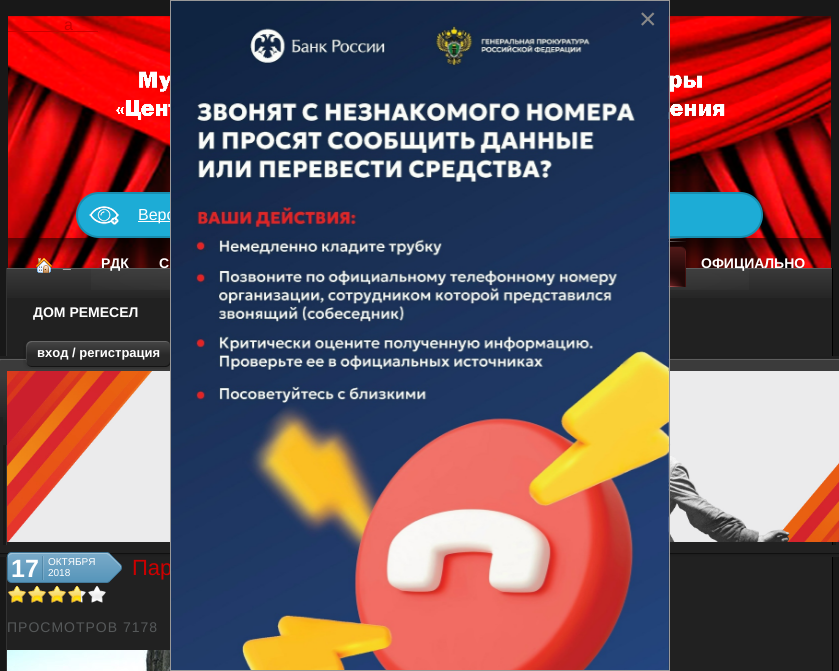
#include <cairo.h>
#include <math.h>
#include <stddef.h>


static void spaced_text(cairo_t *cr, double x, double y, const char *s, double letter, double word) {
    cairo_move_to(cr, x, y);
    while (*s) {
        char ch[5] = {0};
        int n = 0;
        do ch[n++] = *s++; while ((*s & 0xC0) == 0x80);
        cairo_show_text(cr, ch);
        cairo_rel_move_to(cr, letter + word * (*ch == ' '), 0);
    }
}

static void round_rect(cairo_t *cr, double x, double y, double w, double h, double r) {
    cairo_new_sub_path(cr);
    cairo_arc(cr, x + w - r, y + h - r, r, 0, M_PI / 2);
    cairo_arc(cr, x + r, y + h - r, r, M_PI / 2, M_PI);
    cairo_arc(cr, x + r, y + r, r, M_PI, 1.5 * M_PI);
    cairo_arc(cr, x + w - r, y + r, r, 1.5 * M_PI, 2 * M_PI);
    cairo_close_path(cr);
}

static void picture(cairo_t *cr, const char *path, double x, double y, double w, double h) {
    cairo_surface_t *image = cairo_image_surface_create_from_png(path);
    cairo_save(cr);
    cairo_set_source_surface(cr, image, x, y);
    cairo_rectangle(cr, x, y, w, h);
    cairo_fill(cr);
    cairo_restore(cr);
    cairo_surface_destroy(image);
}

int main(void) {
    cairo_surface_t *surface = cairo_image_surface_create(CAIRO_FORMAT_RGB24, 839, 671);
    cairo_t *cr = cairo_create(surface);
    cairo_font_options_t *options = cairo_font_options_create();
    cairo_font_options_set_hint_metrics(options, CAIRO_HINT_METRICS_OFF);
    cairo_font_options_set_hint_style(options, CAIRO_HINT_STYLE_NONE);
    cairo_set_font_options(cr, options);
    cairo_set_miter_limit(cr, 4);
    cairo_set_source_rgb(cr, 0.094, 0.094, 0.094);
    cairo_paint(cr);
    picture(cr, "img2.png", 8, 16, 823, 1);
    picture(cr, "img3.png", 8, 16, 823, 252);
    picture(cr, "img4.png", 116, 71, 609, 49);
    cairo_set_source_rgb(cr, 0.114, 0.675, 0.839);
    round_rect(cr, 77, 193, 685, 44, 22);
    cairo_fill_preserve(cr);
    cairo_set_source_rgb(cr, 0.094, 0.553, 0.686);
    cairo_stroke(cr);
    cairo_set_source_rgb(cr, 1, 1, 1);
    cairo_rectangle(cr, 138, 221, 32, 1);
    cairo_fill(cr);
    cairo_select_font_face(cr, "Liberation Sans", CAIRO_FONT_SLANT_NORMAL, CAIRO_FONT_WEIGHT_NORMAL);
    cairo_set_font_size(cr, 16);
    cairo_move_to(cr, 138, 220);
    cairo_show_text(cr, "Верс");
    picture(cr, "img8.png", 8, 238, 823, 24);
    picture(cr, "img9.png", 7, 269, 825, 29);
    cairo_set_source_rgb(cr, 0.369, 0.369, 0.369);
    cairo_rectangle(cr, 6, 268, 827, 1);
    cairo_fill(cr);
    picture(cr, "img10.png", 91, 269, 658, 21);
    picture(cr, "img7.png", 668, 238, 18, 49);
    cairo_set_source_rgb(cr, 0.129, 0.129, 0.129);
    cairo_rectangle(cr, 7, 298, 825, 373);
    cairo_fill(cr);
    cairo_set_source_rgb(cr, 0, 0, 0);
    cairo_rectangle(cr, 832, 268, 1, 403);
    cairo_fill(cr);
    cairo_set_source_rgb(cr, 0.2, 0.2, 0.2);
    cairo_rectangle(cr, 6, 268, 1, 403);
    cairo_fill(cr);
    picture(cr, "img13.png", 0, 356, 839, 89);
    picture(cr, "img14.png", 0, 545, 839, 12);
    picture(cr, "img17.png", 7, 371, 832, 171);
    cairo_set_font_size(cr, 22);
    cairo_set_source_rgb(cr, 0.8, 0, 0);
    cairo_move_to(cr, 132, 575);
    cairo_show_text(cr, "Пар");
    cairo_rectangle(cr, 170.5, 0.5, 499, 670);
    cairo_set_source_rgb(cr, 0.6, 0.6, 0.6);
    cairo_set_line_width(cr, 1);
    cairo_stroke(cr);
    picture(cr, "img1.png", 171, 1, 498, 669);
    cairo_set_font_size(cr, 30);
    cairo_set_source_rgb(cr, 0.533, 0.533, 0.533);
    cairo_move_to(cr, 639, 29);
    cairo_show_text(cr, "×");
    cairo_set_font_size(cr, 16);
    cairo_set_source_rgb(cr, 0.8, 0, 0);
    cairo_move_to(cr, 64, 30);
    cairo_show_text(cr, "а");
    cairo_rectangle(cr, 8, 31, 90, 1);
    cairo_fill(cr);
    picture(cr, "img5.png", 89, 206, 30, 19);
    picture(cr, "img6.png", 36, 258, 16, 15);
    cairo_select_font_face(cr, "Liberation Sans", CAIRO_FONT_SLANT_NORMAL, CAIRO_FONT_WEIGHT_BOLD);
    cairo_set_font_size(cr, 14);
    cairo_set_source_rgb(cr, 1, 1, 1);
    cairo_move_to(cr, 63, 268);
    cairo_show_text(cr, "_");
    cairo_move_to(cr, 101, 268);
    cairo_show_text(cr, "РДК");
    cairo_move_to(cr, 159, 268);
    cairo_show_text(cr, "С");
    cairo_move_to(cr, 701, 268);
    cairo_show_text(cr, "ОФИЦИАЛЬНО");
    cairo_move_to(cr, 33, 317);
    cairo_show_text(cr, "ДОМ РЕМЕСЕЛ");
    picture(cr, "img11.png", 32, 341, 138, 28);
    picture(cr, "img12.png", 23, 341, 9, 28);
    cairo_set_font_size(cr, 13);
    cairo_move_to(cr, 37, 357);
    cairo_show_text(cr, "вход / регистрация");
    cairo_set_source_rgb(cr, 0.129, 0.129, 0.129);
    cairo_rectangle(cr, 0, 417, 3, 128);
    cairo_fill(cr);
    cairo_rectangle(cr, 836, 542, 3, 3);
    cairo_fill(cr);
    picture(cr, "img15.png", 0, 359, 3, 58);
    picture(cr, "img16.png", 836, 359, 3, 12);
    picture(cr, "img18.png", 7, 552, 115, 31);
    cairo_set_font_size(cr, 25);
    cairo_set_source_rgb(cr, 1, 1, 1);
    cairo_move_to(cr, 11, 577);
    cairo_show_text(cr, "17");
    cairo_select_font_face(cr, "Liberation Sans", CAIRO_FONT_SLANT_NORMAL, CAIRO_FONT_WEIGHT_NORMAL);
    cairo_set_font_size(cr, 10);
    cairo_move_to(cr, 48, 565);
    cairo_show_text(cr, "ОКТЯБРЯ");
    cairo_move_to(cr, 48, 576);
    cairo_show_text(cr, "2018");
    picture(cr, "img19.png", 8, 586, 98, 17);
    picture(cr, "img20.png", 8, 586, 73, 17);
    cairo_set_font_size(cr, 14);
    cairo_set_source_rgb(cr, 0.337, 0.349, 0.353);
    spaced_text(cr, 7, 632, "ПРОСМОТРОВ 7178", 1, 0);
    picture(cr, "img21.png", 7, 650, 163, 21);
    cairo_surface_write_to_png(surface, "page.png");
    cairo_font_options_destroy(options);
    cairo_destroy(cr);
    cairo_surface_destroy(surface);
    return 0;
}
